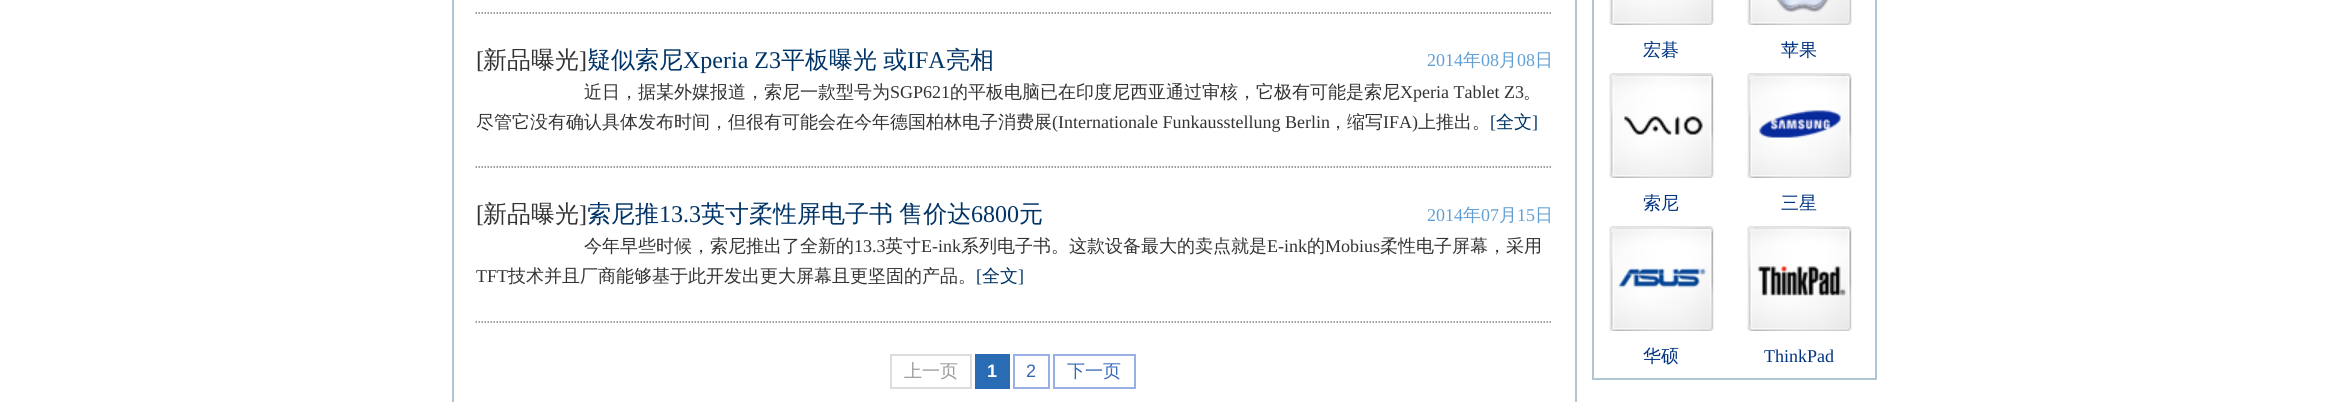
#include <cairo.h>
#include <math.h>
#include <stddef.h>


static void spaced_text(cairo_t *cr, double x, double y, const char *s, double letter, double word) {
    cairo_move_to(cr, x, y);
    while (*s) {
        char ch[5] = {0};
        int n = 0;
        do ch[n++] = *s++; while ((*s & 0xC0) == 0x80);
        cairo_show_text(cr, ch);
        cairo_rel_move_to(cr, letter + word * (*ch == ' '), 0);
    }
}

static void picture(cairo_t *cr, const char *path, double x, double y, double w, double h) {
    cairo_surface_t *image = cairo_image_surface_create_from_png(path);
    cairo_save(cr);
    cairo_set_source_surface(cr, image, x, y);
    cairo_rectangle(cr, x, y, w, h);
    cairo_fill(cr);
    cairo_restore(cr);
    cairo_surface_destroy(image);
}

int main(void) {
    cairo_surface_t *surface = cairo_image_surface_create(CAIRO_FORMAT_RGB24, 2327, 402);
    cairo_t *cr = cairo_create(surface);
    cairo_font_options_t *options = cairo_font_options_create();
    cairo_font_options_set_hint_metrics(options, CAIRO_HINT_METRICS_OFF);
    cairo_font_options_set_hint_style(options, CAIRO_HINT_STYLE_NONE);
    cairo_set_font_options(cr, options);
    cairo_set_miter_limit(cr, 4);
    cairo_set_source_rgb(cr, 1, 1, 1);
    cairo_paint(cr);
    cairo_rectangle(cr, 453, -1, 1123, 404);
    cairo_set_source_rgb(cr, 0.682, 0.78, 0.827);
    cairo_stroke(cr);
    cairo_new_path(cr);
    cairo_move_to(cr, 475.5, 13);
    cairo_line_to(cr, 1552.5, 13);
    cairo_set_source_rgb(cr, 0.502, 0.502, 0.502);
    cairo_set_line_width(cr, 1.5);
    cairo_set_dash(cr, (double[]){1.5, 1.5}, 2, 0);
    cairo_stroke(cr);
    cairo_new_path(cr);
    cairo_move_to(cr, 475.5, 167);
    cairo_line_to(cr, 1552.5, 167);
    cairo_stroke(cr);
    cairo_select_font_face(cr, "Liberation Serif", CAIRO_FONT_SLANT_NORMAL, CAIRO_FONT_WEIGHT_NORMAL);
    cairo_set_font_size(cr, 24);
    cairo_set_source_rgb(cr, 0.2, 0.2, 0.2);
    cairo_move_to(cr, 476, 68);
    cairo_show_text(cr, "[");
    cairo_select_font_face(cr, "WenQuanYi Zen Hei Medium", CAIRO_FONT_SLANT_NORMAL, CAIRO_FONT_WEIGHT_NORMAL);
    cairo_move_to(cr, 483, 68);
    cairo_show_text(cr, "新品曝光");
    cairo_select_font_face(cr, "Liberation Serif", CAIRO_FONT_SLANT_NORMAL, CAIRO_FONT_WEIGHT_NORMAL);
    cairo_move_to(cr, 579, 68);
    cairo_show_text(cr, "]");
    cairo_select_font_face(cr, "WenQuanYi Zen Hei Medium", CAIRO_FONT_SLANT_NORMAL, CAIRO_FONT_WEIGHT_NORMAL);
    cairo_set_source_rgb(cr, 0, 0.2, 0.4);
    cairo_move_to(cr, 587, 68);
    cairo_show_text(cr, "疑似索尼");
    cairo_select_font_face(cr, "Liberation Serif", CAIRO_FONT_SLANT_NORMAL, CAIRO_FONT_WEIGHT_NORMAL);
    cairo_move_to(cr, 683, 68);
    cairo_show_text(cr, "Xperia Z3");
    cairo_select_font_face(cr, "WenQuanYi Zen Hei Medium", CAIRO_FONT_SLANT_NORMAL, CAIRO_FONT_WEIGHT_NORMAL);
    cairo_move_to(cr, 781, 68);
    cairo_show_text(cr, "平板曝光");
    cairo_move_to(cr, 883, 68);
    cairo_show_text(cr, "或");
    cairo_select_font_face(cr, "Liberation Serif", CAIRO_FONT_SLANT_NORMAL, CAIRO_FONT_WEIGHT_NORMAL);
    cairo_move_to(cr, 907, 68);
    cairo_show_text(cr, "IFA");
    cairo_select_font_face(cr, "WenQuanYi Zen Hei Medium", CAIRO_FONT_SLANT_NORMAL, CAIRO_FONT_WEIGHT_NORMAL);
    cairo_move_to(cr, 946, 68);
    cairo_show_text(cr, "亮相");
    cairo_select_font_face(cr, "Liberation Serif", CAIRO_FONT_SLANT_NORMAL, CAIRO_FONT_WEIGHT_NORMAL);
    cairo_set_font_size(cr, 18);
    cairo_set_source_rgb(cr, 0.38, 0.624, 0.827);
    cairo_move_to(cr, 1427, 66);
    cairo_show_text(cr, "2014");
    cairo_select_font_face(cr, "WenQuanYi Zen Hei Medium", CAIRO_FONT_SLANT_NORMAL, CAIRO_FONT_WEIGHT_NORMAL);
    cairo_move_to(cr, 1463, 66);
    cairo_show_text(cr, "年");
    cairo_select_font_face(cr, "Liberation Serif", CAIRO_FONT_SLANT_NORMAL, CAIRO_FONT_WEIGHT_NORMAL);
    cairo_move_to(cr, 1481, 66);
    cairo_show_text(cr, "08");
    cairo_select_font_face(cr, "WenQuanYi Zen Hei Medium", CAIRO_FONT_SLANT_NORMAL, CAIRO_FONT_WEIGHT_NORMAL);
    cairo_move_to(cr, 1499, 66);
    cairo_show_text(cr, "月");
    cairo_select_font_face(cr, "Liberation Serif", CAIRO_FONT_SLANT_NORMAL, CAIRO_FONT_WEIGHT_NORMAL);
    cairo_move_to(cr, 1517, 66);
    cairo_show_text(cr, "08");
    cairo_select_font_face(cr, "WenQuanYi Zen Hei Medium", CAIRO_FONT_SLANT_NORMAL, CAIRO_FONT_WEIGHT_NORMAL);
    cairo_move_to(cr, 1535, 66);
    cairo_show_text(cr, "日");
    cairo_set_source_rgb(cr, 0.2, 0.2, 0.2);
    cairo_move_to(cr, 584, 98);
    cairo_show_text(cr, "近日，据某外媒报道，索尼一款型号为");
    cairo_select_font_face(cr, "Liberation Serif", CAIRO_FONT_SLANT_NORMAL, CAIRO_FONT_WEIGHT_NORMAL);
    cairo_move_to(cr, 890, 98);
    cairo_show_text(cr, "SGP621");
    cairo_select_font_face(cr, "WenQuanYi Zen Hei Medium", CAIRO_FONT_SLANT_NORMAL, CAIRO_FONT_WEIGHT_NORMAL);
    cairo_move_to(cr, 950, 98);
    cairo_show_text(cr, "的平板电脑已在印度尼西亚通过审核，它极有可能是索尼");
    cairo_select_font_face(cr, "Liberation Serif", CAIRO_FONT_SLANT_NORMAL, CAIRO_FONT_WEIGHT_NORMAL);
    cairo_move_to(cr, 1400, 98);
    cairo_show_text(cr, "Xperia Tablet Z3");
    cairo_select_font_face(cr, "WenQuanYi Zen Hei Medium", CAIRO_FONT_SLANT_NORMAL, CAIRO_FONT_WEIGHT_NORMAL);
    cairo_move_to(cr, 1523, 98);
    cairo_show_text(cr, "。");
    cairo_move_to(cr, 476, 128);
    cairo_show_text(cr, "尽管它没有确认具体发布时间，但很有可能会在今年德国柏林电子消费展");
    cairo_select_font_face(cr, "Liberation Serif", CAIRO_FONT_SLANT_NORMAL, CAIRO_FONT_WEIGHT_NORMAL);
    cairo_move_to(cr, 1052, 128);
    cairo_show_text(cr, "(Internationale Funkausstellung Berlin");
    cairo_select_font_face(cr, "WenQuanYi Zen Hei Medium", CAIRO_FONT_SLANT_NORMAL, CAIRO_FONT_WEIGHT_NORMAL);
    cairo_move_to(cr, 1329, 128);
    cairo_show_text(cr, "，缩写");
    cairo_select_font_face(cr, "Liberation Serif", CAIRO_FONT_SLANT_NORMAL, CAIRO_FONT_WEIGHT_NORMAL);
    cairo_move_to(cr, 1383, 128);
    cairo_show_text(cr, "IFA)");
    cairo_select_font_face(cr, "WenQuanYi Zen Hei Medium", CAIRO_FONT_SLANT_NORMAL, CAIRO_FONT_WEIGHT_NORMAL);
    cairo_move_to(cr, 1418, 128);
    cairo_show_text(cr, "上推出。");
    cairo_select_font_face(cr, "Liberation Serif", CAIRO_FONT_SLANT_NORMAL, CAIRO_FONT_WEIGHT_NORMAL);
    cairo_set_source_rgb(cr, 0, 0.2, 0.4);
    cairo_move_to(cr, 1490, 128);
    cairo_show_text(cr, "[");
    cairo_select_font_face(cr, "WenQuanYi Zen Hei Medium", CAIRO_FONT_SLANT_NORMAL, CAIRO_FONT_WEIGHT_NORMAL);
    cairo_move_to(cr, 1496, 128);
    cairo_show_text(cr, "全文");
    cairo_select_font_face(cr, "Liberation Serif", CAIRO_FONT_SLANT_NORMAL, CAIRO_FONT_WEIGHT_NORMAL);
    cairo_move_to(cr, 1532, 128);
    cairo_show_text(cr, "]");
    cairo_new_path(cr);
    cairo_move_to(cr, 475.5, 322);
    cairo_line_to(cr, 1552.5, 322);
    cairo_set_source_rgb(cr, 0.502, 0.502, 0.502);
    cairo_stroke(cr);
    cairo_set_font_size(cr, 24);
    cairo_set_source_rgb(cr, 0.2, 0.2, 0.2);
    cairo_move_to(cr, 476, 222);
    cairo_show_text(cr, "[");
    cairo_select_font_face(cr, "WenQuanYi Zen Hei Medium", CAIRO_FONT_SLANT_NORMAL, CAIRO_FONT_WEIGHT_NORMAL);
    cairo_move_to(cr, 483, 222);
    cairo_show_text(cr, "新品曝光");
    cairo_select_font_face(cr, "Liberation Serif", CAIRO_FONT_SLANT_NORMAL, CAIRO_FONT_WEIGHT_NORMAL);
    cairo_move_to(cr, 579, 222);
    cairo_show_text(cr, "]");
    cairo_select_font_face(cr, "WenQuanYi Zen Hei Medium", CAIRO_FONT_SLANT_NORMAL, CAIRO_FONT_WEIGHT_NORMAL);
    cairo_set_source_rgb(cr, 0, 0.2, 0.4);
    cairo_move_to(cr, 587, 222);
    cairo_show_text(cr, "索尼推");
    cairo_select_font_face(cr, "Liberation Serif", CAIRO_FONT_SLANT_NORMAL, CAIRO_FONT_WEIGHT_NORMAL);
    cairo_move_to(cr, 659, 222);
    cairo_show_text(cr, "13.3");
    cairo_select_font_face(cr, "WenQuanYi Zen Hei Medium", CAIRO_FONT_SLANT_NORMAL, CAIRO_FONT_WEIGHT_NORMAL);
    spaced_text(cr, 701, 222, "英寸柔性屏电子书 售价达", 0, -1);
    cairo_select_font_face(cr, "Liberation Serif", CAIRO_FONT_SLANT_NORMAL, CAIRO_FONT_WEIGHT_NORMAL);
    cairo_move_to(cr, 971, 222);
    cairo_show_text(cr, "6800");
    cairo_select_font_face(cr, "WenQuanYi Zen Hei Medium", CAIRO_FONT_SLANT_NORMAL, CAIRO_FONT_WEIGHT_NORMAL);
    cairo_move_to(cr, 1019, 222);
    cairo_show_text(cr, "元");
    cairo_select_font_face(cr, "Liberation Serif", CAIRO_FONT_SLANT_NORMAL, CAIRO_FONT_WEIGHT_NORMAL);
    cairo_set_font_size(cr, 18);
    cairo_set_source_rgb(cr, 0.38, 0.624, 0.827);
    cairo_move_to(cr, 1427, 221);
    cairo_show_text(cr, "2014");
    cairo_select_font_face(cr, "WenQuanYi Zen Hei Medium", CAIRO_FONT_SLANT_NORMAL, CAIRO_FONT_WEIGHT_NORMAL);
    cairo_move_to(cr, 1463, 221);
    cairo_show_text(cr, "年");
    cairo_select_font_face(cr, "Liberation Serif", CAIRO_FONT_SLANT_NORMAL, CAIRO_FONT_WEIGHT_NORMAL);
    cairo_move_to(cr, 1481, 221);
    cairo_show_text(cr, "07");
    cairo_select_font_face(cr, "WenQuanYi Zen Hei Medium", CAIRO_FONT_SLANT_NORMAL, CAIRO_FONT_WEIGHT_NORMAL);
    cairo_move_to(cr, 1499, 221);
    cairo_show_text(cr, "月");
    cairo_select_font_face(cr, "Liberation Serif", CAIRO_FONT_SLANT_NORMAL, CAIRO_FONT_WEIGHT_NORMAL);
    cairo_move_to(cr, 1517, 221);
    cairo_show_text(cr, "15");
    cairo_select_font_face(cr, "WenQuanYi Zen Hei Medium", CAIRO_FONT_SLANT_NORMAL, CAIRO_FONT_WEIGHT_NORMAL);
    cairo_move_to(cr, 1535, 221);
    cairo_show_text(cr, "日");
    cairo_set_source_rgb(cr, 0.2, 0.2, 0.2);
    cairo_move_to(cr, 584, 252);
    cairo_show_text(cr, "今年早些时候，索尼推出了全新的");
    cairo_select_font_face(cr, "Liberation Serif", CAIRO_FONT_SLANT_NORMAL, CAIRO_FONT_WEIGHT_NORMAL);
    cairo_move_to(cr, 854, 252);
    cairo_show_text(cr, "13.3");
    cairo_select_font_face(cr, "WenQuanYi Zen Hei Medium", CAIRO_FONT_SLANT_NORMAL, CAIRO_FONT_WEIGHT_NORMAL);
    cairo_move_to(cr, 885, 252);
    cairo_show_text(cr, "英寸");
    cairo_select_font_face(cr, "Liberation Serif", CAIRO_FONT_SLANT_NORMAL, CAIRO_FONT_WEIGHT_NORMAL);
    cairo_move_to(cr, 921, 252);
    cairo_show_text(cr, "E-ink");
    cairo_select_font_face(cr, "WenQuanYi Zen Hei Medium", CAIRO_FONT_SLANT_NORMAL, CAIRO_FONT_WEIGHT_NORMAL);
    cairo_move_to(cr, 961, 252);
    cairo_show_text(cr, "系列电子书。这款设备最大的卖点就是");
    cairo_select_font_face(cr, "Liberation Serif", CAIRO_FONT_SLANT_NORMAL, CAIRO_FONT_WEIGHT_NORMAL);
    cairo_move_to(cr, 1267, 252);
    cairo_show_text(cr, "E-ink");
    cairo_select_font_face(cr, "WenQuanYi Zen Hei Medium", CAIRO_FONT_SLANT_NORMAL, CAIRO_FONT_WEIGHT_NORMAL);
    cairo_move_to(cr, 1307, 252);
    cairo_show_text(cr, "的");
    cairo_select_font_face(cr, "Liberation Serif", CAIRO_FONT_SLANT_NORMAL, CAIRO_FONT_WEIGHT_NORMAL);
    cairo_move_to(cr, 1325, 252);
    cairo_show_text(cr, "Mobius");
    cairo_select_font_face(cr, "WenQuanYi Zen Hei Medium", CAIRO_FONT_SLANT_NORMAL, CAIRO_FONT_WEIGHT_NORMAL);
    cairo_move_to(cr, 1380, 252);
    cairo_show_text(cr, "柔性电子屏幕，采用");
    cairo_select_font_face(cr, "Liberation Serif", CAIRO_FONT_SLANT_NORMAL, CAIRO_FONT_WEIGHT_NORMAL);
    cairo_move_to(cr, 476, 282);
    cairo_show_text(cr, "TFT");
    cairo_select_font_face(cr, "WenQuanYi Zen Hei Medium", CAIRO_FONT_SLANT_NORMAL, CAIRO_FONT_WEIGHT_NORMAL);
    cairo_move_to(cr, 508, 282);
    cairo_show_text(cr, "技术并且厂商能够基于此开发出更大屏幕且更坚固的产品。");
    cairo_select_font_face(cr, "Liberation Serif", CAIRO_FONT_SLANT_NORMAL, CAIRO_FONT_WEIGHT_NORMAL);
    cairo_set_source_rgb(cr, 0, 0.2, 0.4);
    cairo_move_to(cr, 976, 282);
    cairo_show_text(cr, "[");
    cairo_select_font_face(cr, "WenQuanYi Zen Hei Medium", CAIRO_FONT_SLANT_NORMAL, CAIRO_FONT_WEIGHT_NORMAL);
    cairo_move_to(cr, 982, 282);
    cairo_show_text(cr, "全文");
    cairo_select_font_face(cr, "Liberation Serif", CAIRO_FONT_SLANT_NORMAL, CAIRO_FONT_WEIGHT_NORMAL);
    cairo_move_to(cr, 1018, 282);
    cairo_show_text(cr, "]");
    cairo_rectangle(cr, 891, 355, 80, 33);
    cairo_set_source_rgb(cr, 0.867, 0.867, 0.867);
    cairo_set_line_width(cr, 2);
    cairo_set_dash(cr, NULL, 0, 0);
    cairo_stroke(cr);
    cairo_select_font_face(cr, "WenQuanYi Zen Hei Medium", CAIRO_FONT_SLANT_NORMAL, CAIRO_FONT_WEIGHT_NORMAL);
    cairo_set_source_rgb(cr, 0.6, 0.6, 0.6);
    cairo_move_to(cr, 904, 377);
    cairo_show_text(cr, "上一页");
    cairo_set_source_rgb(cr, 0.161, 0.424, 0.702);
    cairo_rectangle(cr, 975, 354, 35, 35);
    cairo_fill(cr);
    cairo_select_font_face(cr, "Liberation Sans", CAIRO_FONT_SLANT_NORMAL, CAIRO_FONT_WEIGHT_BOLD);
    cairo_set_source_rgb(cr, 1, 1, 1);
    cairo_move_to(cr, 987, 377);
    cairo_show_text(cr, "1");
    cairo_rectangle(cr, 1014, 355, 35, 33);
    cairo_set_source_rgb(cr, 0.604, 0.686, 0.898);
    cairo_stroke(cr);
    cairo_select_font_face(cr, "Liberation Sans", CAIRO_FONT_SLANT_NORMAL, CAIRO_FONT_WEIGHT_NORMAL);
    cairo_set_source_rgb(cr, 0.208, 0.408, 0.725);
    cairo_move_to(cr, 1026, 377);
    cairo_show_text(cr, "2");
    cairo_rectangle(cr, 1054, 355, 81, 33);
    cairo_set_source_rgb(cr, 0.604, 0.686, 0.898);
    cairo_stroke(cr);
    cairo_select_font_face(cr, "WenQuanYi Zen Hei Medium", CAIRO_FONT_SLANT_NORMAL, CAIRO_FONT_WEIGHT_NORMAL);
    cairo_set_source_rgb(cr, 0.208, 0.408, 0.725);
    cairo_move_to(cr, 1067, 377);
    cairo_show_text(cr, "下一页");
    cairo_set_source_rgb(cr, 0.682, 0.78, 0.827);
    cairo_rectangle(cr, 1875, 0, 2, 380);
    cairo_fill(cr);
    cairo_rectangle(cr, 1592, 378, 285, 2);
    cairo_fill(cr);
    cairo_rectangle(cr, 1592, 0, 2, 380);
    cairo_fill(cr);
    picture(cr, "img1.png", 1609, 0, 106, 25);
    cairo_set_source_rgb(cr, 0, 0.2, 0.506);
    cairo_move_to(cr, 1643, 56);
    cairo_show_text(cr, "宏碁");
    picture(cr, "img2.png", 1747, 0, 106, 25);
    cairo_move_to(cr, 1781, 56);
    cairo_show_text(cr, "苹果");
    picture(cr, "img3.png", 1609, 73, 106, 105);
    cairo_move_to(cr, 1643, 209);
    cairo_show_text(cr, "索尼");
    picture(cr, "img4.png", 1747, 73, 106, 105);
    cairo_move_to(cr, 1781, 209);
    cairo_show_text(cr, "三星");
    picture(cr, "img5.png", 1609, 226, 106, 105);
    cairo_move_to(cr, 1643, 362);
    cairo_show_text(cr, "华硕");
    picture(cr, "img6.png", 1747, 226, 106, 105);
    cairo_select_font_face(cr, "Liberation Serif", CAIRO_FONT_SLANT_NORMAL, CAIRO_FONT_WEIGHT_NORMAL);
    cairo_move_to(cr, 1764, 362);
    cairo_show_text(cr, "ThinkPad");
    cairo_surface_write_to_png(surface, "page.png");
    cairo_font_options_destroy(options);
    cairo_destroy(cr);
    cairo_surface_destroy(surface);
    return 0;
}
